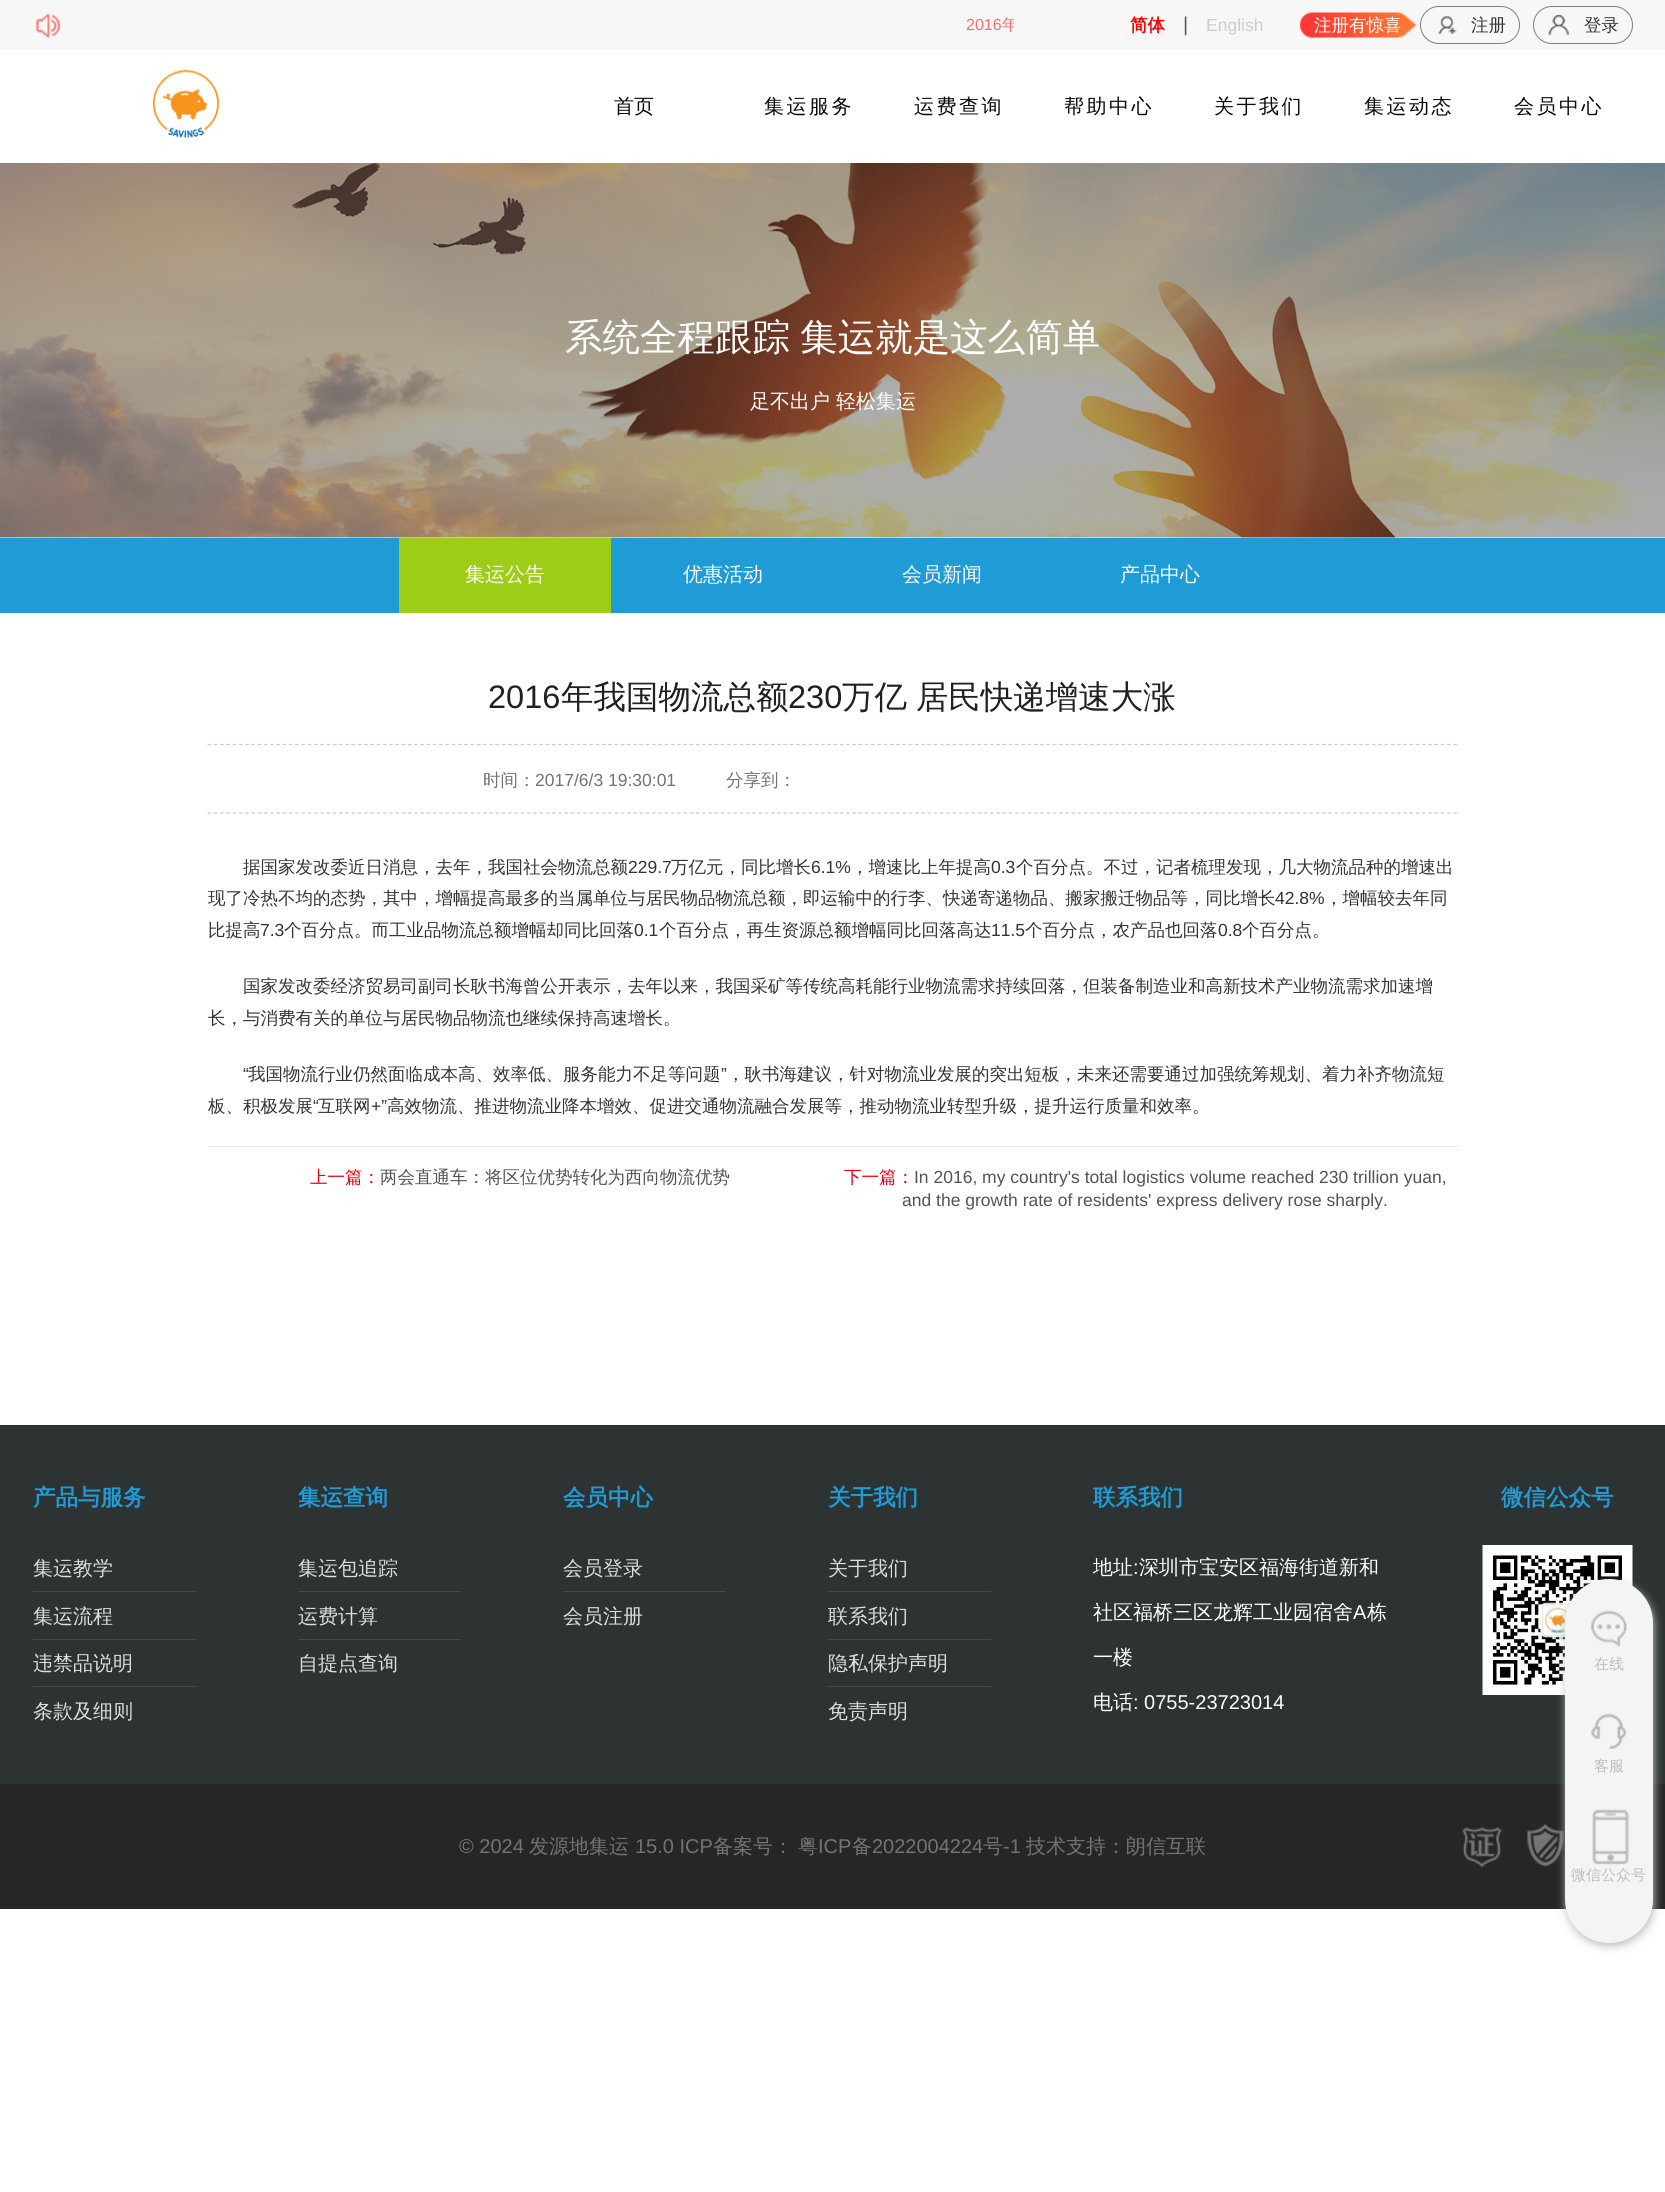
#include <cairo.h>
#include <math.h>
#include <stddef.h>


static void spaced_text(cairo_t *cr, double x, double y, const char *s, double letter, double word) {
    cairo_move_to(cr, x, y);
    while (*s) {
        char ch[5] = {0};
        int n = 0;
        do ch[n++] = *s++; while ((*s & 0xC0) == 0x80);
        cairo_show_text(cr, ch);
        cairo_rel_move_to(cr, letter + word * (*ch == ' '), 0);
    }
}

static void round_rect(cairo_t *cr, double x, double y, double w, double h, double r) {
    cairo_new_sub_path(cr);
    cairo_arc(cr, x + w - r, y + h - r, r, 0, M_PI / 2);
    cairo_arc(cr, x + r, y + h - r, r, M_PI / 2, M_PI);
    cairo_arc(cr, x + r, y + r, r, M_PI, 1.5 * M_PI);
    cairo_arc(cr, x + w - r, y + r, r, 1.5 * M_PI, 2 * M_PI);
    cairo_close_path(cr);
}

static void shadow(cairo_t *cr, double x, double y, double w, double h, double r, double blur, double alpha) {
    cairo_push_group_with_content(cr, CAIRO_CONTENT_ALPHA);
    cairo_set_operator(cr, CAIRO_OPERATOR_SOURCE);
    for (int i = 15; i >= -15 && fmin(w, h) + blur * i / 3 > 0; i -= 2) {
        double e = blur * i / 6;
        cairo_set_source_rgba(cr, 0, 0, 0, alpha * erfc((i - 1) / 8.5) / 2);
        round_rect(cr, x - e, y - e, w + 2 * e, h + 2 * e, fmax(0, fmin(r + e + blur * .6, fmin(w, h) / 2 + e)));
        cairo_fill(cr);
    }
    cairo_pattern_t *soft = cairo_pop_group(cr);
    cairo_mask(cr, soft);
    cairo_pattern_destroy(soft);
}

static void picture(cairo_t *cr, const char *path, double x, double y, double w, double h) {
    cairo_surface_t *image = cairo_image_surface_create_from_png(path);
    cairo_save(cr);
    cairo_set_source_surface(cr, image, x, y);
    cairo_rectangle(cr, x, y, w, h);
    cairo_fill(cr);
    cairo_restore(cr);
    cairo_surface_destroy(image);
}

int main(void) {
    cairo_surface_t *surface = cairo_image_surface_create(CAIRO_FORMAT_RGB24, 1665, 2192);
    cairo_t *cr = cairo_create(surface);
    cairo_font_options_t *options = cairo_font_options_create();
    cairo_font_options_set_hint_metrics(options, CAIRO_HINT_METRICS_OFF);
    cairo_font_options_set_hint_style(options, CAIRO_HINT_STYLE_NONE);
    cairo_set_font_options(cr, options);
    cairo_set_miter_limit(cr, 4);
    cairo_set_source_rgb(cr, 1, 1, 1);
    cairo_paint(cr);
    cairo_set_source_rgb(cr, 0.965, 0.965, 0.965);
    cairo_rectangle(cr, 0, 0, 1665, 50);
    cairo_fill(cr);
    picture(cr, "img1.png", 36, 13, 25, 25);
    cairo_select_font_face(cr, "Liberation Sans", CAIRO_FONT_SLANT_NORMAL, CAIRO_FONT_WEIGHT_NORMAL);
    cairo_set_font_size(cr, 16);
    cairo_set_source_rgb(cr, 1, 0.431, 0.431);
    cairo_move_to(cr, 966, 30);
    cairo_show_text(cr, "2016");
    cairo_save(cr);
    cairo_rectangle(cr, 76, 15, 938, 20);
    cairo_clip(cr);
    cairo_select_font_face(cr, "WenQuanYi Zen Hei Medium", CAIRO_FONT_SLANT_NORMAL, CAIRO_FONT_WEIGHT_NORMAL);
    cairo_move_to(cr, 1002, 30);
    cairo_show_text(cr, "年");
    cairo_restore(cr);
    cairo_select_font_face(cr, "WenQuanYi Zen Hei", CAIRO_FONT_SLANT_NORMAL, CAIRO_FONT_WEIGHT_BOLD);
    cairo_set_font_size(cr, 17.5);
    cairo_set_source_rgb(cr, 1, 0, 0);
    cairo_move_to(cr, 1130, 31);
    cairo_show_text(cr, "简体");
    cairo_select_font_face(cr, "Liberation Sans", CAIRO_FONT_SLANT_NORMAL, CAIRO_FONT_WEIGHT_NORMAL);
    cairo_set_font_size(cr, 20);
    cairo_set_source_rgb(cr, 0.349, 0.349, 0.349);
    cairo_move_to(cr, 1183, 31);
    cairo_show_text(cr, "|");
    cairo_set_font_size(cr, 17.5);
    cairo_set_source_rgb(cr, 0.8, 0.8, 0.8);
    cairo_move_to(cr, 1206, 31);
    cairo_show_text(cr, "English");
    picture(cr, "img2.png", 1299, 12, 118, 26);
    cairo_select_font_face(cr, "WenQuanYi Zen Hei Medium", CAIRO_FONT_SLANT_NORMAL, CAIRO_FONT_WEIGHT_NORMAL);
    cairo_set_source_rgb(cr, 1, 1, 1);
    cairo_move_to(cr, 1314, 31);
    cairo_show_text(cr, "注册有惊喜");
    round_rect(cr, 1420.5, 6.5, 99, 37, 18.5);
    cairo_set_source_rgb(cr, 0.502, 0.502, 0.502);
    cairo_set_line_width(cr, 1);
    cairo_stroke(cr);
    picture(cr, "img3.png", 1438, 16, 19, 18);
    cairo_set_source_rgb(cr, 0.2, 0.2, 0.2);
    cairo_move_to(cr, 1471, 31);
    cairo_show_text(cr, "注册");
    round_rect(cr, 1533.5, 6.5, 99, 37, 18.5);
    cairo_set_source_rgb(cr, 0.502, 0.502, 0.502);
    cairo_stroke(cr);
    picture(cr, "img4.png", 1548, 14, 21, 22);
    cairo_set_source_rgb(cr, 0.2, 0.2, 0.2);
    cairo_move_to(cr, 1584, 31);
    cairo_show_text(cr, "登录");
    picture(cr, "img5.png", 153, 69, 66, 69);
    cairo_set_font_size(cr, 20);
    cairo_set_source_rgb(cr, 0.039, 0.039, 0.039);
    cairo_move_to(cr, 614, 113);
    cairo_show_text(cr, "首页");
    spaced_text(cr, 764, 113, "集运服务", 2.5, 0);
    spaced_text(cr, 914, 113, "运费查询", 2.5, 0);
    spaced_text(cr, 1064, 113, "帮助中心", 2.5, 0);
    spaced_text(cr, 1214, 113, "关于我们", 2.5, 0);
    spaced_text(cr, 1364, 113, "集运动态", 2.5, 0);
    spaced_text(cr, 1514, 113, "会员中心", 2.5, 0);
    picture(cr, "img6.png", 0, 163, 1665, 375);
    cairo_set_font_size(cr, 37.5);
    cairo_set_source_rgb(cr, 1, 1, 1);
    spaced_text(cr, 565, 350, "系统全程跟踪 集运就是这么简单", 0, -1);
    cairo_set_font_size(cr, 20);
    cairo_move_to(cr, 750, 408);
    cairo_show_text(cr, "足不出户 轻松集运");
    cairo_set_source_rgb(cr, 0.122, 0.608, 0.839);
    cairo_rectangle(cr, 0, 538, 1665, 75);
    cairo_fill(cr);
    cairo_set_source_rgb(cr, 0.616, 0.804, 0.09);
    cairo_rectangle(cr, 399, 538, 212, 75);
    cairo_fill(cr);
    cairo_set_source_rgb(cr, 1, 1, 1);
    cairo_move_to(cr, 465, 581);
    cairo_show_text(cr, "集运公告");
    cairo_move_to(cr, 683, 581);
    cairo_show_text(cr, "优惠活动");
    cairo_move_to(cr, 902, 581);
    cairo_show_text(cr, "会员新闻");
    cairo_move_to(cr, 1120, 581);
    cairo_show_text(cr, "产品中心");
    cairo_select_font_face(cr, "Liberation Sans", CAIRO_FONT_SLANT_NORMAL, CAIRO_FONT_WEIGHT_NORMAL);
    cairo_set_font_size(cr, 32.5);
    cairo_set_source_rgb(cr, 0.125, 0.125, 0.125);
    cairo_move_to(cr, 488, 708);
    cairo_show_text(cr, "2016");
    cairo_select_font_face(cr, "WenQuanYi Zen Hei Medium", CAIRO_FONT_SLANT_NORMAL, CAIRO_FONT_WEIGHT_NORMAL);
    cairo_move_to(cr, 561, 708);
    cairo_show_text(cr, "年我国物流总额");
    cairo_select_font_face(cr, "Liberation Sans", CAIRO_FONT_SLANT_NORMAL, CAIRO_FONT_WEIGHT_NORMAL);
    cairo_move_to(cr, 788, 708);
    cairo_show_text(cr, "230");
    cairo_select_font_face(cr, "WenQuanYi Zen Hei Medium", CAIRO_FONT_SLANT_NORMAL, CAIRO_FONT_WEIGHT_NORMAL);
    spaced_text(cr, 842, 708, "万亿 居民快递增速大涨", 0, -1);
    cairo_new_path(cr);
    cairo_move_to(cr, 207.5, 744.5);
    cairo_line_to(cr, 1457.5, 744.5);
    cairo_set_source_rgb(cr, 0.8, 0.8, 0.8);
    cairo_set_line_width(cr, 1.2);
    cairo_set_dash(cr, (double[]){3.75, 2.51}, 2, 0);
    cairo_stroke(cr);
    cairo_new_path(cr);
    cairo_move_to(cr, 207.5, 813);
    cairo_line_to(cr, 1457.5, 813);
    cairo_stroke(cr);
    cairo_set_font_size(cr, 17.5);
    cairo_set_source_rgb(cr, 0.455, 0.451, 0.451);
    cairo_move_to(cr, 483, 786);
    cairo_show_text(cr, "时间：");
    cairo_select_font_face(cr, "Liberation Sans", CAIRO_FONT_SLANT_NORMAL, CAIRO_FONT_WEIGHT_NORMAL);
    cairo_move_to(cr, 535, 786);
    cairo_show_text(cr, "2017/6/3 19:30:01");
    cairo_select_font_face(cr, "WenQuanYi Zen Hei Medium", CAIRO_FONT_SLANT_NORMAL, CAIRO_FONT_WEIGHT_NORMAL);
    cairo_move_to(cr, 726, 786);
    cairo_show_text(cr, "分享到：");
    cairo_set_source_rgb(cr, 0.2, 0.2, 0.2);
    cairo_move_to(cr, 243, 873);
    cairo_show_text(cr, "据国家发改委近日消息，去年，我国社会物流总额");
    cairo_select_font_face(cr, "Liberation Sans", CAIRO_FONT_SLANT_NORMAL, CAIRO_FONT_WEIGHT_NORMAL);
    cairo_move_to(cr, 628, 873);
    cairo_show_text(cr, "229.7");
    cairo_select_font_face(cr, "WenQuanYi Zen Hei Medium", CAIRO_FONT_SLANT_NORMAL, CAIRO_FONT_WEIGHT_NORMAL);
    cairo_move_to(cr, 671, 873);
    cairo_show_text(cr, "万亿元，同比增长");
    cairo_select_font_face(cr, "Liberation Sans", CAIRO_FONT_SLANT_NORMAL, CAIRO_FONT_WEIGHT_NORMAL);
    cairo_move_to(cr, 811, 873);
    cairo_show_text(cr, "6.1%");
    cairo_select_font_face(cr, "WenQuanYi Zen Hei Medium", CAIRO_FONT_SLANT_NORMAL, CAIRO_FONT_WEIGHT_NORMAL);
    cairo_move_to(cr, 851, 873);
    cairo_show_text(cr, "，增速比上年提高");
    cairo_select_font_face(cr, "Liberation Sans", CAIRO_FONT_SLANT_NORMAL, CAIRO_FONT_WEIGHT_NORMAL);
    cairo_move_to(cr, 991, 873);
    cairo_show_text(cr, "0.3");
    cairo_select_font_face(cr, "WenQuanYi Zen Hei Medium", CAIRO_FONT_SLANT_NORMAL, CAIRO_FONT_WEIGHT_NORMAL);
    cairo_move_to(cr, 1016, 873);
    cairo_show_text(cr, "个百分点。不过，记者梳理发现，几大物流品种的增速出");
    cairo_move_to(cr, 208, 904);
    cairo_show_text(cr, "现了冷热不均的态势，其中，增幅提高最多的当属单位与居民物品物流总额，即运输中的行李、快递寄递物品、搬家搬迁物品等，同比增长");
    cairo_select_font_face(cr, "Liberation Sans", CAIRO_FONT_SLANT_NORMAL, CAIRO_FONT_WEIGHT_NORMAL);
    cairo_move_to(cr, 1275, 904);
    cairo_show_text(cr, "42.8%");
    cairo_select_font_face(cr, "WenQuanYi Zen Hei Medium", CAIRO_FONT_SLANT_NORMAL, CAIRO_FONT_WEIGHT_NORMAL);
    cairo_move_to(cr, 1325, 904);
    cairo_show_text(cr, "，增幅较去年同");
    cairo_move_to(cr, 208, 936);
    cairo_show_text(cr, "比提高");
    cairo_select_font_face(cr, "Liberation Sans", CAIRO_FONT_SLANT_NORMAL, CAIRO_FONT_WEIGHT_NORMAL);
    cairo_move_to(cr, 260, 936);
    cairo_show_text(cr, "7.3");
    cairo_select_font_face(cr, "WenQuanYi Zen Hei Medium", CAIRO_FONT_SLANT_NORMAL, CAIRO_FONT_WEIGHT_NORMAL);
    cairo_move_to(cr, 284, 936);
    cairo_show_text(cr, "个百分点。而工业品物流总额增幅却同比回落");
    cairo_select_font_face(cr, "Liberation Sans", CAIRO_FONT_SLANT_NORMAL, CAIRO_FONT_WEIGHT_NORMAL);
    cairo_move_to(cr, 634, 936);
    cairo_show_text(cr, "0.1");
    cairo_select_font_face(cr, "WenQuanYi Zen Hei Medium", CAIRO_FONT_SLANT_NORMAL, CAIRO_FONT_WEIGHT_NORMAL);
    cairo_move_to(cr, 659, 936);
    cairo_show_text(cr, "个百分点，再生资源总额增幅同比回落高达");
    cairo_select_font_face(cr, "Liberation Sans", CAIRO_FONT_SLANT_NORMAL, CAIRO_FONT_WEIGHT_NORMAL);
    cairo_move_to(cr, 991, 936);
    cairo_show_text(cr, "11.5");
    cairo_select_font_face(cr, "WenQuanYi Zen Hei Medium", CAIRO_FONT_SLANT_NORMAL, CAIRO_FONT_WEIGHT_NORMAL);
    cairo_move_to(cr, 1025, 936);
    cairo_show_text(cr, "个百分点，农产品也回落");
    cairo_select_font_face(cr, "Liberation Sans", CAIRO_FONT_SLANT_NORMAL, CAIRO_FONT_WEIGHT_NORMAL);
    cairo_move_to(cr, 1218, 936);
    cairo_show_text(cr, "0.8");
    cairo_select_font_face(cr, "WenQuanYi Zen Hei Medium", CAIRO_FONT_SLANT_NORMAL, CAIRO_FONT_WEIGHT_NORMAL);
    cairo_move_to(cr, 1242, 936);
    cairo_show_text(cr, "个百分点。");
    cairo_move_to(cr, 243, 992);
    cairo_show_text(cr, "国家发改委经济贸易司副司长耿书海曾公开表示，去年以来，我国采矿等传统高耗能行业物流需求持续回落，但装备制造业和高新技术产业物流需求加速增");
    cairo_move_to(cr, 208, 1024);
    cairo_show_text(cr, "长，与消费有关的单位与居民物品物流也继续保持高速增长。");
    cairo_select_font_face(cr, "Liberation Sans", CAIRO_FONT_SLANT_NORMAL, CAIRO_FONT_WEIGHT_NORMAL);
    cairo_move_to(cr, 243, 1080);
    cairo_show_text(cr, "“");
    cairo_select_font_face(cr, "WenQuanYi Zen Hei Medium", CAIRO_FONT_SLANT_NORMAL, CAIRO_FONT_WEIGHT_NORMAL);
    cairo_move_to(cr, 248, 1080);
    cairo_show_text(cr, "我国物流行业仍然面临成本高、效率低、服务能力不足等问题");
    cairo_select_font_face(cr, "Liberation Sans", CAIRO_FONT_SLANT_NORMAL, CAIRO_FONT_WEIGHT_NORMAL);
    cairo_move_to(cr, 721, 1080);
    cairo_show_text(cr, "”");
    cairo_select_font_face(cr, "WenQuanYi Zen Hei Medium", CAIRO_FONT_SLANT_NORMAL, CAIRO_FONT_WEIGHT_NORMAL);
    cairo_move_to(cr, 727, 1080);
    cairo_show_text(cr, "，耿书海建议，针对物流业发展的突出短板，未来还需要通过加强统筹规划、着力补齐物流短");
    cairo_move_to(cr, 208, 1112);
    cairo_show_text(cr, "板、积极发展");
    cairo_select_font_face(cr, "Liberation Sans", CAIRO_FONT_SLANT_NORMAL, CAIRO_FONT_WEIGHT_NORMAL);
    cairo_move_to(cr, 313, 1112);
    cairo_show_text(cr, "“");
    cairo_select_font_face(cr, "WenQuanYi Zen Hei Medium", CAIRO_FONT_SLANT_NORMAL, CAIRO_FONT_WEIGHT_NORMAL);
    cairo_move_to(cr, 318, 1112);
    cairo_show_text(cr, "互联网");
    cairo_select_font_face(cr, "Liberation Sans", CAIRO_FONT_SLANT_NORMAL, CAIRO_FONT_WEIGHT_NORMAL);
    cairo_move_to(cr, 371, 1112);
    cairo_show_text(cr, "+”");
    cairo_select_font_face(cr, "WenQuanYi Zen Hei Medium", CAIRO_FONT_SLANT_NORMAL, CAIRO_FONT_WEIGHT_NORMAL);
    cairo_move_to(cr, 387, 1112);
    cairo_show_text(cr, "高效物流、推进物流业降本增效、促进交通物流融合发展等，推动物流业转型升级，提升运行质量和效率。");
    cairo_set_source_rgb(cr, 0.898, 0.898, 0.898);
    cairo_rectangle(cr, 208, 1146, 1250, 1);
    cairo_fill(cr);
    cairo_set_source_rgb(cr, 0.906, 0, 0.071);
    cairo_move_to(cr, 310, 1183);
    cairo_show_text(cr, "上一篇：");
    cairo_set_source_rgb(cr, 0.325, 0.325, 0.325);
    cairo_move_to(cr, 380, 1183);
    cairo_show_text(cr, "两会直通车：将区位优势转化为西向物流优势");
    cairo_set_source_rgb(cr, 0.906, 0, 0.071);
    cairo_move_to(cr, 844, 1183);
    cairo_show_text(cr, "下一篇：");
    cairo_select_font_face(cr, "Liberation Sans", CAIRO_FONT_SLANT_NORMAL, CAIRO_FONT_WEIGHT_NORMAL);
    cairo_set_source_rgb(cr, 0.325, 0.325, 0.325);
    cairo_move_to(cr, 914, 1183);
    cairo_show_text(cr, "In 2016, my country's total logistics volume reached 230 trillion yuan,");
    cairo_move_to(cr, 902, 1206);
    cairo_show_text(cr, "and the growth rate of residents' express delivery rose sharply.");
    cairo_set_source_rgb(cr, 0.176, 0.196, 0.2);
    cairo_rectangle(cr, 0, 1425, 1665, 359);
    cairo_fill(cr);
    cairo_select_font_face(cr, "WenQuanYi Zen Hei", CAIRO_FONT_SLANT_NORMAL, CAIRO_FONT_WEIGHT_BOLD);
    cairo_set_font_size(cr, 22.5);
    cairo_set_source_rgb(cr, 0.122, 0.608, 0.839);
    cairo_move_to(cr, 33, 1505);
    cairo_show_text(cr, "产品与服务");
    cairo_set_source_rgb(cr, 0.267, 0.286, 0.29);
    cairo_rectangle(cr, 33, 1591, 163, 1);
    cairo_fill(cr);
    cairo_select_font_face(cr, "WenQuanYi Zen Hei Medium", CAIRO_FONT_SLANT_NORMAL, CAIRO_FONT_WEIGHT_NORMAL);
    cairo_set_font_size(cr, 20);
    cairo_set_source_rgb(cr, 0.851, 0.871, 0.875);
    cairo_move_to(cr, 33, 1575);
    cairo_show_text(cr, "集运教学");
    cairo_set_source_rgb(cr, 0.267, 0.286, 0.29);
    cairo_rectangle(cr, 33, 1639, 163, 1);
    cairo_fill(cr);
    cairo_set_source_rgb(cr, 0.851, 0.871, 0.875);
    cairo_move_to(cr, 33, 1623);
    cairo_show_text(cr, "集运流程");
    cairo_set_source_rgb(cr, 0.267, 0.286, 0.29);
    cairo_rectangle(cr, 33, 1686, 163, 1);
    cairo_fill(cr);
    cairo_set_source_rgb(cr, 0.851, 0.871, 0.875);
    cairo_move_to(cr, 33, 1670);
    cairo_show_text(cr, "违禁品说明");
    cairo_move_to(cr, 33, 1718);
    cairo_show_text(cr, "条款及细则");
    cairo_select_font_face(cr, "WenQuanYi Zen Hei", CAIRO_FONT_SLANT_NORMAL, CAIRO_FONT_WEIGHT_BOLD);
    cairo_set_font_size(cr, 22.5);
    cairo_set_source_rgb(cr, 0.122, 0.608, 0.839);
    cairo_move_to(cr, 298, 1505);
    cairo_show_text(cr, "集运查询");
    cairo_set_source_rgb(cr, 0.267, 0.286, 0.29);
    cairo_rectangle(cr, 298, 1591, 163, 1);
    cairo_fill(cr);
    cairo_select_font_face(cr, "WenQuanYi Zen Hei Medium", CAIRO_FONT_SLANT_NORMAL, CAIRO_FONT_WEIGHT_NORMAL);
    cairo_set_font_size(cr, 20);
    cairo_set_source_rgb(cr, 0.851, 0.871, 0.875);
    cairo_move_to(cr, 298, 1575);
    cairo_show_text(cr, "集运包追踪");
    cairo_set_source_rgb(cr, 0.267, 0.286, 0.29);
    cairo_rectangle(cr, 298, 1639, 163, 1);
    cairo_fill(cr);
    cairo_set_source_rgb(cr, 0.851, 0.871, 0.875);
    cairo_move_to(cr, 298, 1623);
    cairo_show_text(cr, "运费计算");
    cairo_move_to(cr, 298, 1670);
    cairo_show_text(cr, "自提点查询");
    cairo_select_font_face(cr, "WenQuanYi Zen Hei", CAIRO_FONT_SLANT_NORMAL, CAIRO_FONT_WEIGHT_BOLD);
    cairo_set_font_size(cr, 22.5);
    cairo_set_source_rgb(cr, 0.122, 0.608, 0.839);
    cairo_move_to(cr, 563, 1505);
    cairo_show_text(cr, "会员中心");
    cairo_set_source_rgb(cr, 0.267, 0.286, 0.29);
    cairo_rectangle(cr, 563, 1591, 163, 1);
    cairo_fill(cr);
    cairo_select_font_face(cr, "WenQuanYi Zen Hei Medium", CAIRO_FONT_SLANT_NORMAL, CAIRO_FONT_WEIGHT_NORMAL);
    cairo_set_font_size(cr, 20);
    cairo_set_source_rgb(cr, 0.851, 0.871, 0.875);
    cairo_move_to(cr, 563, 1575);
    cairo_show_text(cr, "会员登录");
    cairo_move_to(cr, 563, 1623);
    cairo_show_text(cr, "会员注册");
    cairo_select_font_face(cr, "WenQuanYi Zen Hei", CAIRO_FONT_SLANT_NORMAL, CAIRO_FONT_WEIGHT_BOLD);
    cairo_set_font_size(cr, 22.5);
    cairo_set_source_rgb(cr, 0.122, 0.608, 0.839);
    cairo_move_to(cr, 828, 1505);
    cairo_show_text(cr, "关于我们");
    cairo_set_source_rgb(cr, 0.267, 0.286, 0.29);
    cairo_rectangle(cr, 828, 1591, 163, 1);
    cairo_fill(cr);
    cairo_select_font_face(cr, "WenQuanYi Zen Hei Medium", CAIRO_FONT_SLANT_NORMAL, CAIRO_FONT_WEIGHT_NORMAL);
    cairo_set_font_size(cr, 20);
    cairo_set_source_rgb(cr, 0.851, 0.871, 0.875);
    cairo_move_to(cr, 828, 1575);
    cairo_show_text(cr, "关于我们");
    cairo_set_source_rgb(cr, 0.267, 0.286, 0.29);
    cairo_rectangle(cr, 828, 1639, 163, 1);
    cairo_fill(cr);
    cairo_set_source_rgb(cr, 0.851, 0.871, 0.875);
    cairo_move_to(cr, 828, 1623);
    cairo_show_text(cr, "联系我们");
    cairo_set_source_rgb(cr, 0.267, 0.286, 0.29);
    cairo_rectangle(cr, 828, 1686, 163, 1);
    cairo_fill(cr);
    cairo_set_source_rgb(cr, 0.851, 0.871, 0.875);
    cairo_move_to(cr, 828, 1670);
    cairo_show_text(cr, "隐私保护声明");
    cairo_move_to(cr, 828, 1718);
    cairo_show_text(cr, "免责声明");
    cairo_select_font_face(cr, "WenQuanYi Zen Hei", CAIRO_FONT_SLANT_NORMAL, CAIRO_FONT_WEIGHT_BOLD);
    cairo_set_font_size(cr, 22.5);
    cairo_set_source_rgb(cr, 0.122, 0.608, 0.839);
    cairo_move_to(cr, 1093, 1505);
    cairo_show_text(cr, "联系我们");
    cairo_select_font_face(cr, "WenQuanYi Zen Hei Medium", CAIRO_FONT_SLANT_NORMAL, CAIRO_FONT_WEIGHT_NORMAL);
    cairo_set_font_size(cr, 20);
    cairo_set_source_rgb(cr, 1, 1, 1);
    cairo_move_to(cr, 1093, 1574);
    cairo_show_text(cr, "地址");
    cairo_select_font_face(cr, "Liberation Sans", CAIRO_FONT_SLANT_NORMAL, CAIRO_FONT_WEIGHT_NORMAL);
    cairo_move_to(cr, 1133, 1574);
    cairo_show_text(cr, ":");
    cairo_select_font_face(cr, "WenQuanYi Zen Hei Medium", CAIRO_FONT_SLANT_NORMAL, CAIRO_FONT_WEIGHT_NORMAL);
    cairo_move_to(cr, 1139, 1574);
    cairo_show_text(cr, "深圳市宝安区福海街道新和");
    cairo_move_to(cr, 1093, 1619);
    cairo_show_text(cr, "社区福桥三区龙辉工业园宿舍");
    cairo_select_font_face(cr, "Liberation Sans", CAIRO_FONT_SLANT_NORMAL, CAIRO_FONT_WEIGHT_NORMAL);
    cairo_move_to(cr, 1353, 1619);
    cairo_show_text(cr, "A");
    cairo_select_font_face(cr, "WenQuanYi Zen Hei Medium", CAIRO_FONT_SLANT_NORMAL, CAIRO_FONT_WEIGHT_NORMAL);
    cairo_move_to(cr, 1367, 1619);
    cairo_show_text(cr, "栋");
    cairo_move_to(cr, 1093, 1664);
    cairo_show_text(cr, "一楼");
    cairo_move_to(cr, 1093, 1709);
    cairo_show_text(cr, "电话");
    cairo_select_font_face(cr, "Liberation Sans", CAIRO_FONT_SLANT_NORMAL, CAIRO_FONT_WEIGHT_NORMAL);
    cairo_move_to(cr, 1133, 1709);
    cairo_show_text(cr, ": 0755-23723014");
    cairo_select_font_face(cr, "WenQuanYi Zen Hei", CAIRO_FONT_SLANT_NORMAL, CAIRO_FONT_WEIGHT_BOLD);
    cairo_set_font_size(cr, 22.5);
    cairo_set_source_rgb(cr, 0.122, 0.608, 0.839);
    cairo_move_to(cr, 1501, 1505);
    cairo_show_text(cr, "微信公众号");
    picture(cr, "img7.png", 1482, 1545, 151, 150);
    cairo_set_source_rgb(cr, 0.149, 0.149, 0.161);
    cairo_rectangle(cr, 0, 1784, 1665, 125);
    cairo_fill(cr);
    cairo_select_font_face(cr, "Liberation Sans", CAIRO_FONT_SLANT_NORMAL, CAIRO_FONT_WEIGHT_NORMAL);
    cairo_set_font_size(cr, 20);
    cairo_set_source_rgb(cr, 0.455, 0.451, 0.451);
    cairo_move_to(cr, 459, 1853);
    cairo_show_text(cr, "© 2024");
    cairo_select_font_face(cr, "WenQuanYi Zen Hei Medium", CAIRO_FONT_SLANT_NORMAL, CAIRO_FONT_WEIGHT_NORMAL);
    cairo_move_to(cr, 529, 1853);
    cairo_show_text(cr, "发源地集运");
    cairo_select_font_face(cr, "Liberation Sans", CAIRO_FONT_SLANT_NORMAL, CAIRO_FONT_WEIGHT_NORMAL);
    cairo_move_to(cr, 635, 1853);
    cairo_show_text(cr, "15.0 ICP");
    cairo_select_font_face(cr, "WenQuanYi Zen Hei Medium", CAIRO_FONT_SLANT_NORMAL, CAIRO_FONT_WEIGHT_NORMAL);
    cairo_move_to(cr, 713, 1853);
    cairo_show_text(cr, "备案号：");
    cairo_move_to(cr, 798, 1853);
    cairo_show_text(cr, "粤");
    cairo_select_font_face(cr, "Liberation Sans", CAIRO_FONT_SLANT_NORMAL, CAIRO_FONT_WEIGHT_NORMAL);
    cairo_move_to(cr, 818, 1853);
    cairo_show_text(cr, "ICP");
    cairo_select_font_face(cr, "WenQuanYi Zen Hei Medium", CAIRO_FONT_SLANT_NORMAL, CAIRO_FONT_WEIGHT_NORMAL);
    cairo_move_to(cr, 852, 1853);
    cairo_show_text(cr, "备");
    cairo_select_font_face(cr, "Liberation Sans", CAIRO_FONT_SLANT_NORMAL, CAIRO_FONT_WEIGHT_NORMAL);
    cairo_move_to(cr, 872, 1853);
    cairo_show_text(cr, "2022004224");
    cairo_select_font_face(cr, "WenQuanYi Zen Hei Medium", CAIRO_FONT_SLANT_NORMAL, CAIRO_FONT_WEIGHT_NORMAL);
    cairo_move_to(cr, 983, 1853);
    cairo_show_text(cr, "号");
    cairo_select_font_face(cr, "Liberation Sans", CAIRO_FONT_SLANT_NORMAL, CAIRO_FONT_WEIGHT_NORMAL);
    cairo_move_to(cr, 1003, 1853);
    cairo_show_text(cr, "-1");
    cairo_select_font_face(cr, "WenQuanYi Zen Hei Medium", CAIRO_FONT_SLANT_NORMAL, CAIRO_FONT_WEIGHT_NORMAL);
    cairo_move_to(cr, 1026, 1853);
    cairo_show_text(cr, "技术支持：朗信互联");
    picture(cr, "img8.png", 1462, 1823, 102, 45);
    cairo_set_source_rgb(cr, 0.737, 0.741, 0.741);
    shadow(cr, 1566, 1583, 88, 363, 44, 4.5, 1);
    cairo_set_source_rgb(cr, 0.957, 0.957, 0.957);
    round_rect(cr, 1565, 1579, 88, 364, 44);
    cairo_fill(cr);
    picture(cr, "img9.png", 1591, 1610, 36, 37);
    cairo_set_font_size(cr, 15);
    cairo_set_source_rgb(cr, 0.741, 0.741, 0.741);
    cairo_move_to(cr, 1594, 1669);
    cairo_show_text(cr, "在线");
    picture(cr, "img10.png", 1591, 1713, 36, 36);
    cairo_move_to(cr, 1594, 1771);
    cairo_show_text(cr, "客服");
    picture(cr, "img11.png", 1592, 1809, 37, 56);
    cairo_move_to(cr, 1571, 1880);
    cairo_show_text(cr, "微信公众号");
    cairo_surface_write_to_png(surface, "page.png");
    cairo_font_options_destroy(options);
    cairo_destroy(cr);
    cairo_surface_destroy(surface);
    return 0;
}
